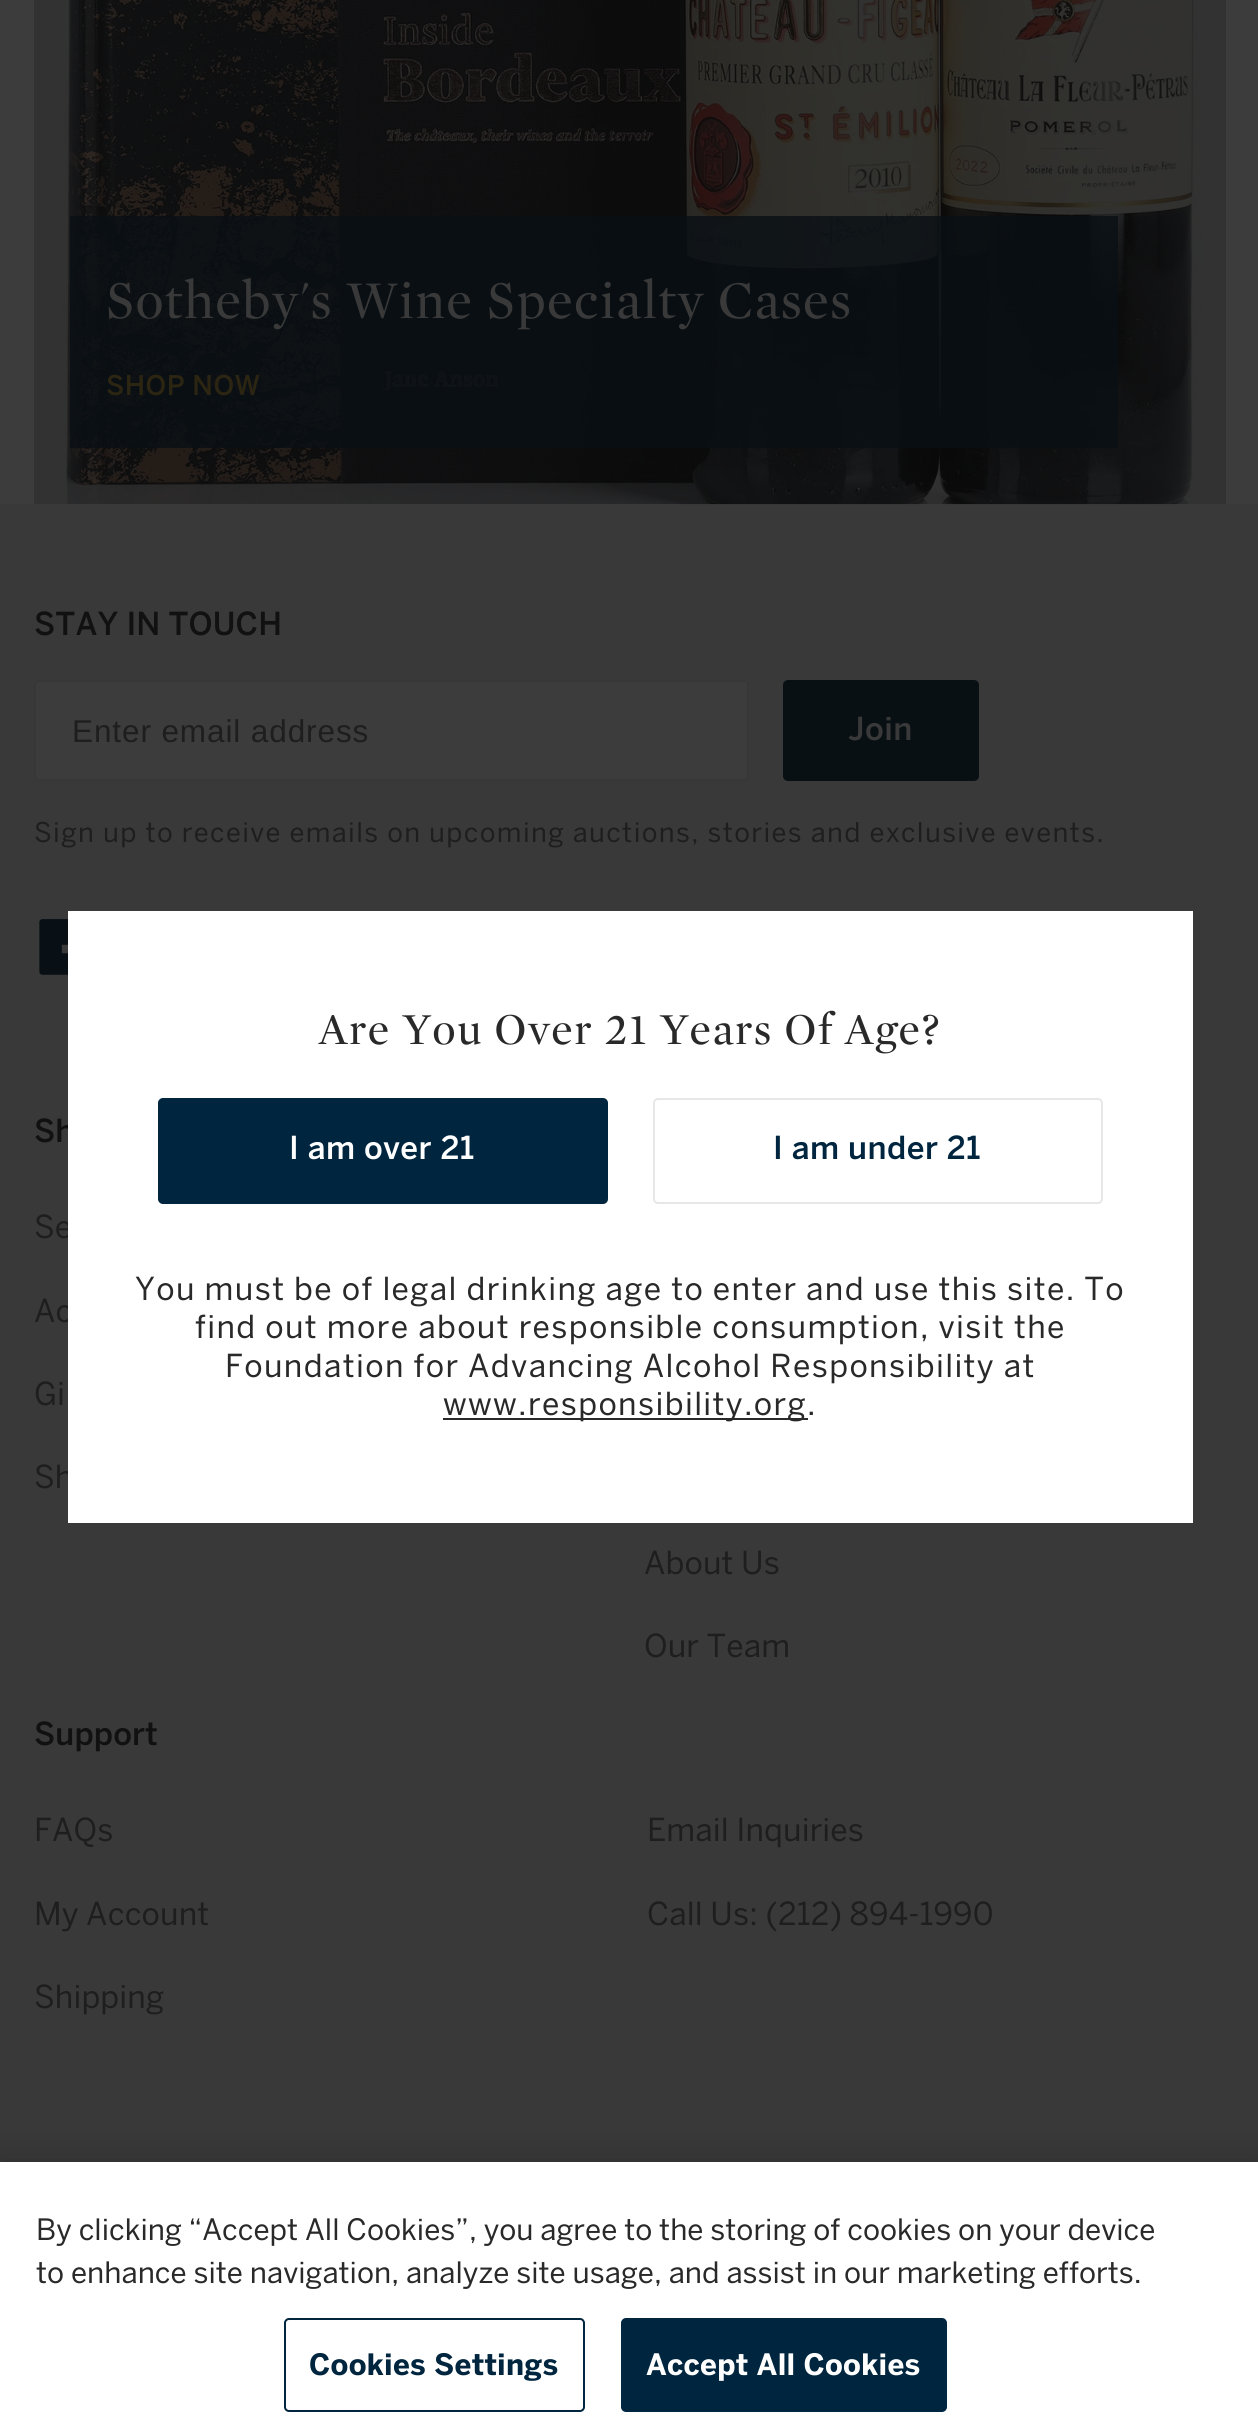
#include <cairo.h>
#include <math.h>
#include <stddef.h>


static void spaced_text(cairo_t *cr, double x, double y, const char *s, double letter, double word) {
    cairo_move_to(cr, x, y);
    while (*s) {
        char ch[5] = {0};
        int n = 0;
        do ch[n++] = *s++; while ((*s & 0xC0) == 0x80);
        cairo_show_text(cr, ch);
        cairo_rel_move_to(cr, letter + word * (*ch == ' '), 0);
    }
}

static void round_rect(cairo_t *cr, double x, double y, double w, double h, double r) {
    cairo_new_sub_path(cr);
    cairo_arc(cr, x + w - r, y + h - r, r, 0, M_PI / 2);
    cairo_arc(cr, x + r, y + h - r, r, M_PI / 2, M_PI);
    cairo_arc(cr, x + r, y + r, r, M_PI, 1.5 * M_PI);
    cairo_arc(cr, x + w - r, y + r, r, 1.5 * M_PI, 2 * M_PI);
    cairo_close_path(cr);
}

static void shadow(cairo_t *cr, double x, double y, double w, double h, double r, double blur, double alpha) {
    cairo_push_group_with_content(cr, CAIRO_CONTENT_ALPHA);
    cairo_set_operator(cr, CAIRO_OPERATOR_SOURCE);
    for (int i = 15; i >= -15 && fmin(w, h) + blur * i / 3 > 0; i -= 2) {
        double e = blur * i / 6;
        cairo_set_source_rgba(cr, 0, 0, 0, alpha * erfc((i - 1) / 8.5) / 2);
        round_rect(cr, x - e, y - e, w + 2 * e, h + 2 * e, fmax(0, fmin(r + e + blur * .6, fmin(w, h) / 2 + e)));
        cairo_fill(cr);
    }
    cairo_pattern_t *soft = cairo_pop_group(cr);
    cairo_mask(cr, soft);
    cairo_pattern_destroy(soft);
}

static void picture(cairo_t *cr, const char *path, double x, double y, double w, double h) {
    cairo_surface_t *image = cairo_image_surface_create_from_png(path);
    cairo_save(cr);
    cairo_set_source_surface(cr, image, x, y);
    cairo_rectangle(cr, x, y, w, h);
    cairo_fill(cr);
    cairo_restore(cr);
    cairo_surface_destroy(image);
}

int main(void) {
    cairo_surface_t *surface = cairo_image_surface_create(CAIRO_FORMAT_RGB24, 1258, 2434);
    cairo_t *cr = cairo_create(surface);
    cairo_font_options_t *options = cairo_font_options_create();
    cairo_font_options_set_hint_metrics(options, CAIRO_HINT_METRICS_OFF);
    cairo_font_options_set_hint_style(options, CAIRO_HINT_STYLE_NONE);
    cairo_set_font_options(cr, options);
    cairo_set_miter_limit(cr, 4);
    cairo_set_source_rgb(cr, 0.235, 0.235, 0.235);
    cairo_paint(cr);
    cairo_set_source_rgb(cr, 0.224, 0.224, 0.224);
    cairo_rectangle(cr, 0, 504, 1258, 1658);
    cairo_fill(cr);
    picture(cr, "img1.png", 34, 0, 1192, 505);
    cairo_set_source_rgba(cr, 0.035, 0.063, 0.082, 0.8);
    cairo_rectangle(cr, 70, 216, 1048, 232);
    cairo_fill(cr);
    cairo_select_font_face(cr, "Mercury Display", CAIRO_FONT_SLANT_NORMAL, CAIRO_FONT_WEIGHT_NORMAL);
    cairo_set_font_size(cr, 54);
    cairo_set_source_rgb(cr, 0.224, 0.224, 0.224);
    spaced_text(cr, 106, 318, "Sotheby's Wine Specialty Cases", 1.1, 0);
    cairo_select_font_face(cr, "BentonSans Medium", CAIRO_FONT_SLANT_NORMAL, CAIRO_FONT_WEIGHT_NORMAL);
    cairo_set_font_size(cr, 27);
    cairo_set_source_rgb(cr, 0.169, 0.145, 0.071);
    spaced_text(cr, 106, 395, "SHOP NOW", 0.5, 0);
    cairo_set_font_size(cr, 31.5);
    cairo_set_source_rgb(cr, 0.067, 0.067, 0.067);
    spaced_text(cr, 34, 635, "STAY IN TOUCH", 0.1, 0);
    cairo_set_source_rgb(cr, 0.235, 0.235, 0.235);
    round_rect(cr, 35, 681, 713, 99, 4);
    cairo_fill_preserve(cr);
    cairo_set_source_rgb(cr, 0.216, 0.216, 0.216);
    cairo_stroke(cr);
    cairo_select_font_face(cr, "Liberation Sans", CAIRO_FONT_SLANT_NORMAL, CAIRO_FONT_WEIGHT_NORMAL);
    cairo_set_source_rgb(cr, 0.118, 0.118, 0.118);
    spaced_text(cr, 72, 742, "Enter email address", 0.9, 0);
    cairo_set_source_rgb(cr, 0.035, 0.063, 0.082);
    round_rect(cr, 783, 680, 196, 101, 5);
    cairo_fill(cr);
    cairo_select_font_face(cr, "BentonSans Medium", CAIRO_FONT_SLANT_NORMAL, CAIRO_FONT_WEIGHT_NORMAL);
    cairo_set_source_rgb(cr, 0.224, 0.224, 0.224);
    spaced_text(cr, 848, 740, "Join", 0.5, 0);
    cairo_select_font_face(cr, "BentonSans", CAIRO_FONT_SLANT_NORMAL, CAIRO_FONT_WEIGHT_NORMAL);
    cairo_set_font_size(cr, 27);
    cairo_set_source_rgb(cr, 0.118, 0.118, 0.118);
    spaced_text(cr, 34, 842, "Sign up to receive emails on upcoming auctions, stories and exclusive events.", 1.35, 0);
    picture(cr, "img2.png", 39, 919, 29, 56);
    cairo_select_font_face(cr, "BentonSans Medium", CAIRO_FONT_SLANT_NORMAL, CAIRO_FONT_WEIGHT_NORMAL);
    cairo_set_font_size(cr, 31.5);
    cairo_set_source_rgb(cr, 0.067, 0.067, 0.067);
    spaced_text(cr, 34, 1142, "Sh", 0.1, 0);
    cairo_select_font_face(cr, "BentonSans", CAIRO_FONT_SLANT_NORMAL, CAIRO_FONT_WEIGHT_NORMAL);
    cairo_set_source_rgb(cr, 0.118, 0.118, 0.118);
    spaced_text(cr, 34, 1238, "Se", 0.1, 0);
    spaced_text(cr, 34, 1322, "Ac", 0.1, 0);
    spaced_text(cr, 34, 1405, "Gi", 0.1, 0);
    spaced_text(cr, 34, 1488, "Sh", 0.1, 0);
    spaced_text(cr, 644, 1574, "About Us", 0.1, 0);
    spaced_text(cr, 644, 1657, "Our Team", 0.1, 0);
    cairo_select_font_face(cr, "BentonSans Medium", CAIRO_FONT_SLANT_NORMAL, CAIRO_FONT_WEIGHT_NORMAL);
    cairo_set_source_rgb(cr, 0.067, 0.067, 0.067);
    spaced_text(cr, 34, 1745, "Support", 0.1, 0);
    cairo_select_font_face(cr, "BentonSans", CAIRO_FONT_SLANT_NORMAL, CAIRO_FONT_WEIGHT_NORMAL);
    cairo_set_source_rgb(cr, 0.118, 0.118, 0.118);
    spaced_text(cr, 34, 1841, "FAQs", 0.1, 0);
    spaced_text(cr, 647, 1841, "Email Inquiries", 0.1, 0);
    spaced_text(cr, 34, 1925, "My Account", 0.1, 0);
    spaced_text(cr, 647, 1925, "Call Us: (212) 894-1990", 0.1, 0);
    spaced_text(cr, 34, 2008, "Shipping", 0.1, 0);
    cairo_set_source_rgb(cr, 1, 1, 1);
    cairo_rectangle(cr, 68, 911, 1125, 612);
    cairo_fill(cr);
    cairo_select_font_face(cr, "Mercury Display", CAIRO_FONT_SLANT_NORMAL, CAIRO_FONT_WEIGHT_NORMAL);
    cairo_set_font_size(cr, 45);
    cairo_set_source_rgb(cr, 0.161, 0.161, 0.161);
    spaced_text(cr, 319, 1044, "Are You Over 21 Years Of Age?", 1.35, 0);
    cairo_set_source_rgb(cr, 0, 0.145, 0.243);
    round_rect(cr, 158, 1098, 450, 106, 5);
    cairo_fill(cr);
    cairo_select_font_face(cr, "BentonSans Medium", CAIRO_FONT_SLANT_NORMAL, CAIRO_FONT_WEIGHT_NORMAL);
    cairo_set_font_size(cr, 31.5);
    cairo_set_source_rgb(cr, 1, 1, 1);
    spaced_text(cr, 289, 1159, "I am over 21", 0.5, 0);
    round_rect(cr, 654, 1099, 448, 104, 4);
    cairo_set_source_rgb(cr, 0.906, 0.906, 0.906);
    cairo_stroke(cr);
    cairo_set_source_rgb(cr, 0, 0.145, 0.243);
    spaced_text(cr, 773, 1159, "I am under 21", 0.5, 0);
    cairo_select_font_face(cr, "BentonSans", CAIRO_FONT_SLANT_NORMAL, CAIRO_FONT_WEIGHT_NORMAL);
    cairo_set_source_rgb(cr, 0.161, 0.161, 0.161);
    spaced_text(cr, 135, 1300, "You must be of legal drinking age to enter and use this site. To", 1.35, 0);
    spaced_text(cr, 195, 1338, "find out more about responsible consumption, visit the", 1.35, 0);
    spaced_text(cr, 225, 1377, "Foundation for Advancing Alcohol Responsibility at", 1.35, 0);
    cairo_rectangle(cr, 443, 1418, 365, 2);
    cairo_fill(cr);
    spaced_text(cr, 443, 1415, "www.responsibility.org.", 1.35, 0);
    cairo_set_source_rgb(cr, 0, 0, 0);
    shadow(cr, 0, 2162, 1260, 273, 0, 20, 0.2);
    cairo_set_source_rgb(cr, 1, 1, 1);
    cairo_rectangle(cr, 0, 2162, 1258, 272);
    cairo_fill(cr);
    cairo_set_font_size(cr, 29.25);
    cairo_set_source_rgb(cr, 0.161, 0.161, 0.161);
    cairo_move_to(cr, 36, 2240);
    cairo_show_text(cr, "By clicking “Accept All Cookies”, you agree to the storing of cookies on your device");
    cairo_move_to(cr, 36, 2283);
    cairo_show_text(cr, "to enhance site navigation, analyze site usage, and assist in our marketing efforts.");
    round_rect(cr, 285, 2319, 299, 92, 4);
    cairo_set_source_rgb(cr, 0, 0.145, 0.243);
    cairo_stroke(cr);
    cairo_select_font_face(cr, "BentonSans", CAIRO_FONT_SLANT_NORMAL, CAIRO_FONT_WEIGHT_BOLD);
    spaced_text(cr, 309, 2375, "Cookies Settings", 0.25, 0);
    round_rect(cr, 622, 2319, 324, 92, 4);
    cairo_fill_preserve(cr);
    cairo_stroke(cr);
    cairo_set_source_rgb(cr, 1, 1, 1);
    spaced_text(cr, 646, 2375, "Accept All Cookies", 0.25, 0);
    cairo_surface_write_to_png(surface, "page.png");
    cairo_font_options_destroy(options);
    cairo_destroy(cr);
    cairo_surface_destroy(surface);
    return 0;
}
